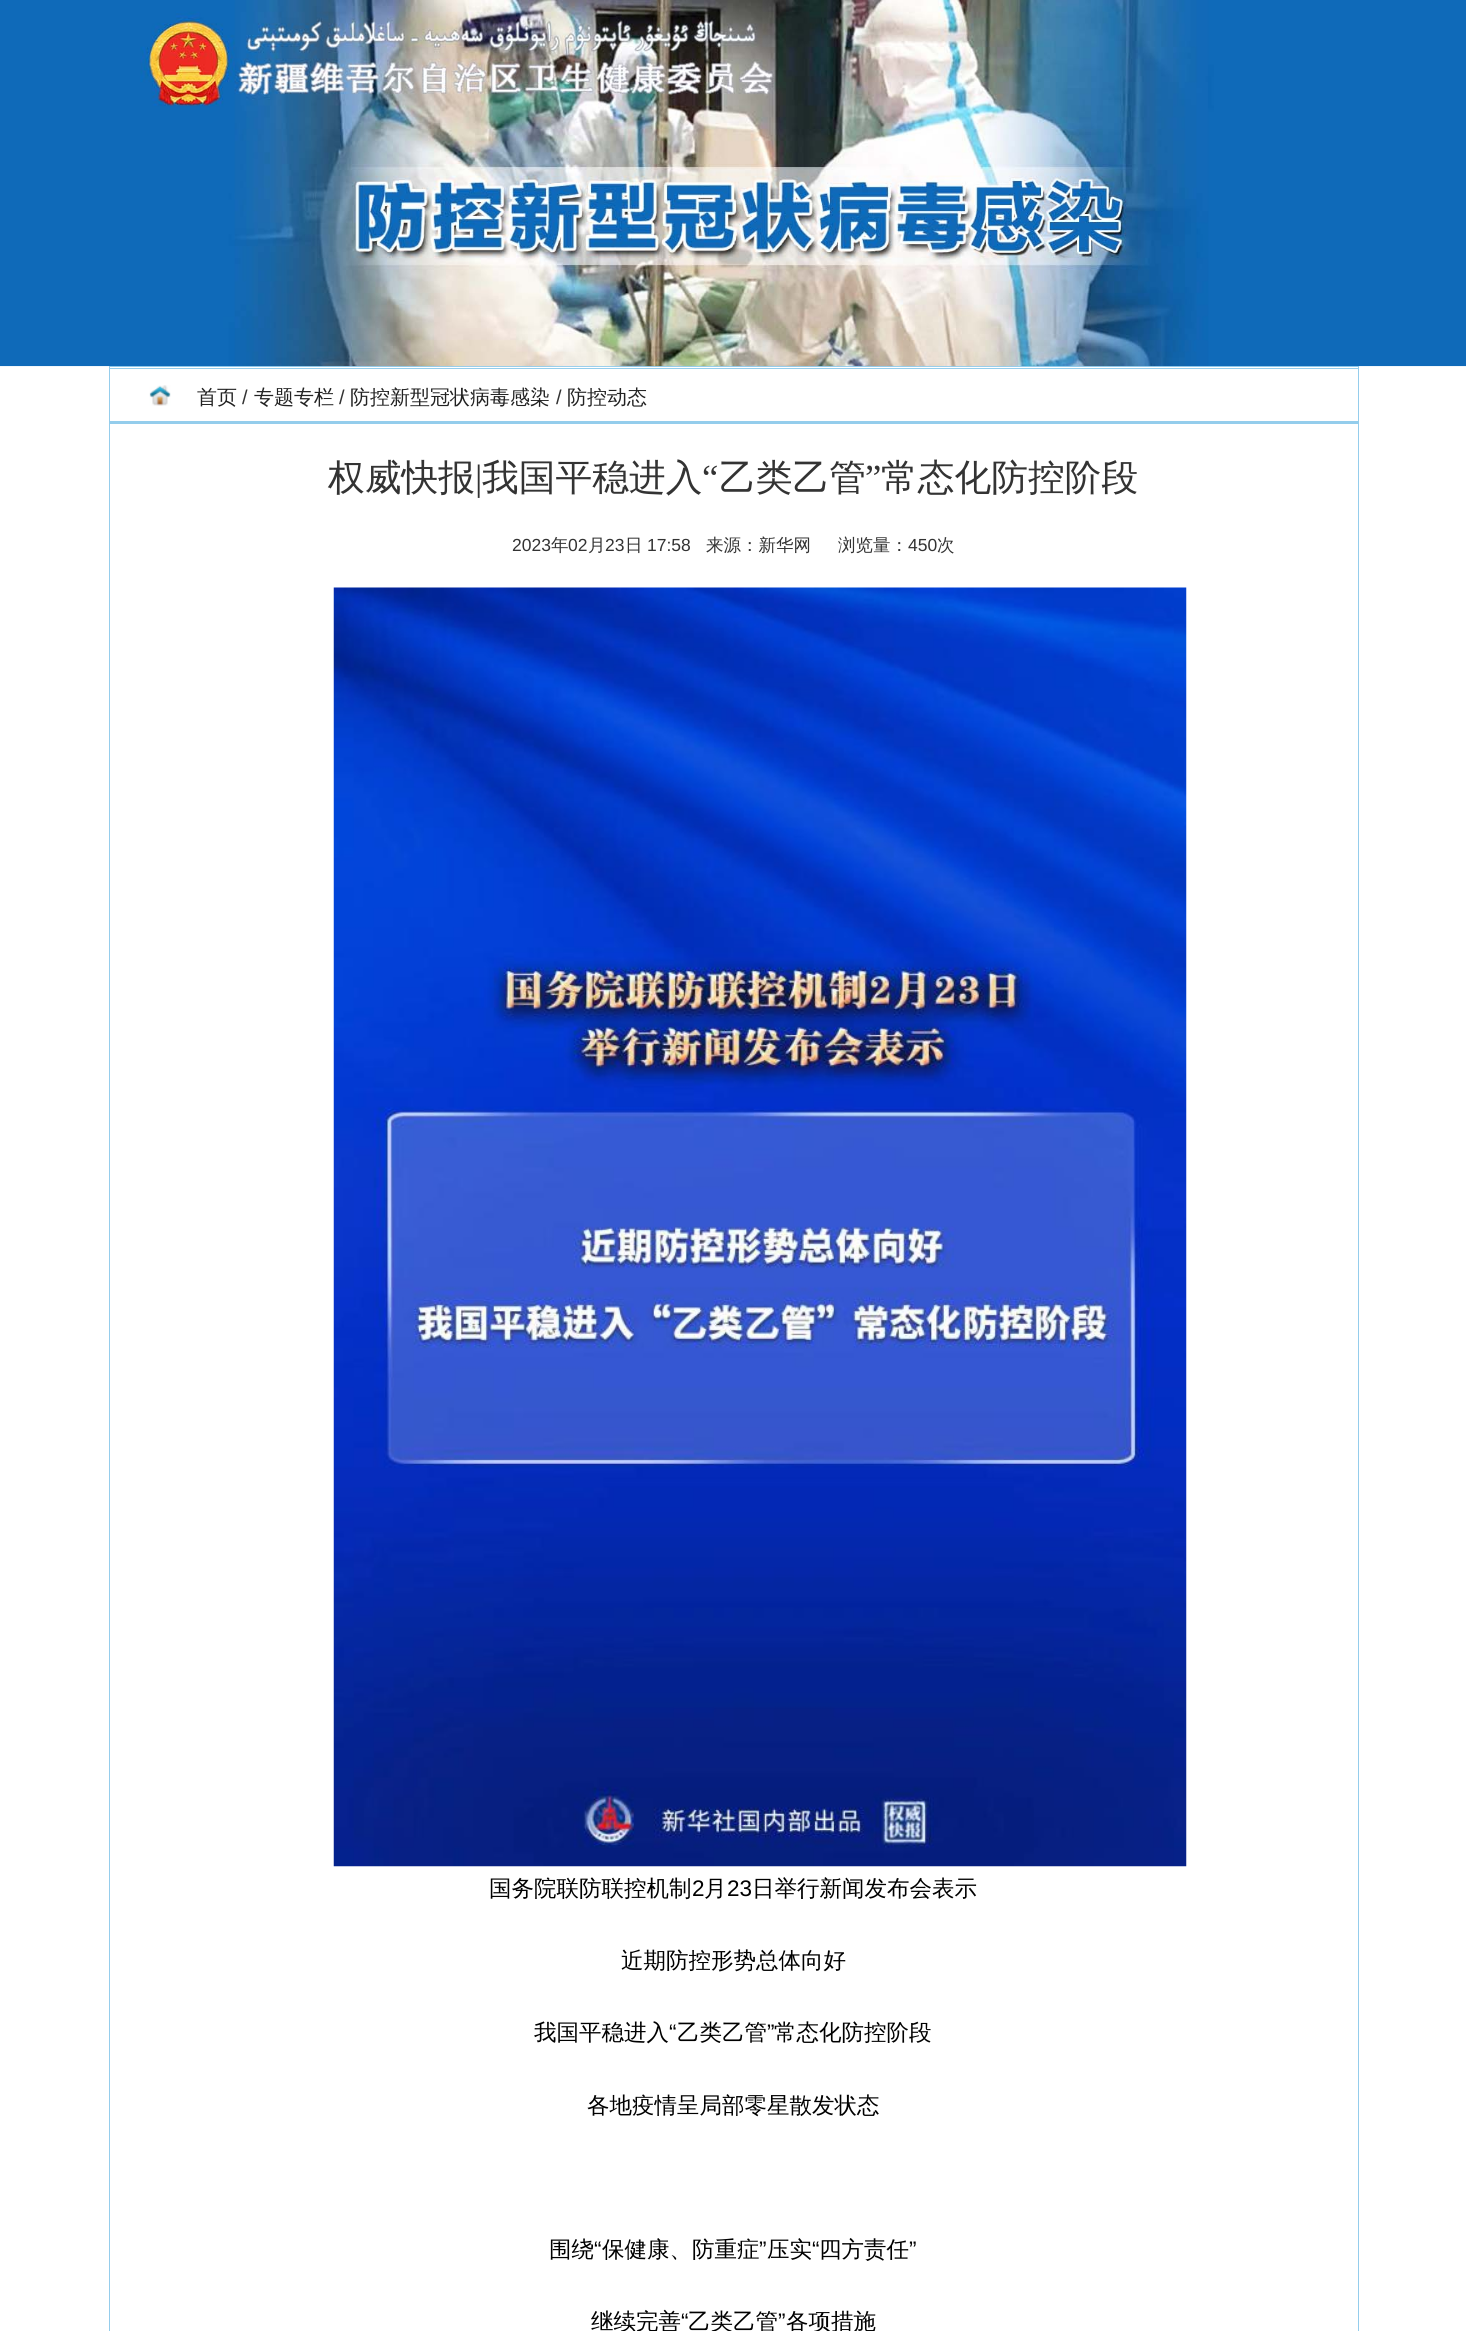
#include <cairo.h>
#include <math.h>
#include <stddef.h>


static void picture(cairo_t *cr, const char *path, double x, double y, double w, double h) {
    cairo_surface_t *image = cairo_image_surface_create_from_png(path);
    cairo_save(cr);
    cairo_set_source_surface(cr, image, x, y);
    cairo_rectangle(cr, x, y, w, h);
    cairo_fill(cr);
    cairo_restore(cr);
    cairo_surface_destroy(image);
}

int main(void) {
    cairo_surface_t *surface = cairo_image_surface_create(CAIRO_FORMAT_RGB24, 1466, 2331);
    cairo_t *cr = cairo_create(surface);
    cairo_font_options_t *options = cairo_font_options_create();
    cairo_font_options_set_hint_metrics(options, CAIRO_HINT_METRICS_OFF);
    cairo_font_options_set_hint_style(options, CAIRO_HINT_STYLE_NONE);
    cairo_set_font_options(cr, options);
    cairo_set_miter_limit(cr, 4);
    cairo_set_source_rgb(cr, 1, 1, 1);
    cairo_paint(cr);
    cairo_rectangle(cr, 109.5, 366.5, 1249, 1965);
    cairo_set_source_rgb(cr, 0.584, 0.804, 0.925);
    cairo_set_line_width(cr, 1);
    cairo_stroke(cr);
    picture(cr, "img1.png", 0, 0, 1466, 367);
    picture(cr, "img2.png", 149, 385, 22, 21);
    cairo_set_source_rgb(cr, 0.58, 0.804, 0.922);
    cairo_rectangle(cr, 109, 368, 1250, 1);
    cairo_fill(cr);
    cairo_rectangle(cr, 109, 421, 1250, 3);
    cairo_fill(cr);
    cairo_select_font_face(cr, "WenQuanYi Zen Hei Medium", CAIRO_FONT_SLANT_NORMAL, CAIRO_FONT_WEIGHT_NORMAL);
    cairo_set_font_size(cr, 20);
    cairo_set_source_rgb(cr, 0.133, 0.133, 0.133);
    cairo_move_to(cr, 197, 404);
    cairo_show_text(cr, "首页");
    cairo_select_font_face(cr, "Liberation Sans", CAIRO_FONT_SLANT_NORMAL, CAIRO_FONT_WEIGHT_NORMAL);
    cairo_set_source_rgb(cr, 0.2, 0.2, 0.2);
    cairo_move_to(cr, 242, 404);
    cairo_show_text(cr, "/");
    cairo_select_font_face(cr, "WenQuanYi Zen Hei Medium", CAIRO_FONT_SLANT_NORMAL, CAIRO_FONT_WEIGHT_NORMAL);
    cairo_set_source_rgb(cr, 0.133, 0.133, 0.133);
    cairo_move_to(cr, 254, 404);
    cairo_show_text(cr, "专题专栏");
    cairo_select_font_face(cr, "Liberation Sans", CAIRO_FONT_SLANT_NORMAL, CAIRO_FONT_WEIGHT_NORMAL);
    cairo_set_source_rgb(cr, 0.2, 0.2, 0.2);
    cairo_move_to(cr, 339, 404);
    cairo_show_text(cr, "/");
    cairo_select_font_face(cr, "WenQuanYi Zen Hei Medium", CAIRO_FONT_SLANT_NORMAL, CAIRO_FONT_WEIGHT_NORMAL);
    cairo_set_source_rgb(cr, 0.133, 0.133, 0.133);
    cairo_move_to(cr, 350, 404);
    cairo_show_text(cr, "防控新型冠状病毒感染");
    cairo_select_font_face(cr, "Liberation Sans", CAIRO_FONT_SLANT_NORMAL, CAIRO_FONT_WEIGHT_NORMAL);
    cairo_set_source_rgb(cr, 0.2, 0.2, 0.2);
    cairo_move_to(cr, 556, 404);
    cairo_show_text(cr, "/");
    cairo_select_font_face(cr, "WenQuanYi Zen Hei Medium", CAIRO_FONT_SLANT_NORMAL, CAIRO_FONT_WEIGHT_NORMAL);
    cairo_set_source_rgb(cr, 0.133, 0.133, 0.133);
    cairo_move_to(cr, 567, 404);
    cairo_show_text(cr, "防控动态");
    cairo_set_font_size(cr, 36.75);
    cairo_set_source_rgb(cr, 0.2, 0.2, 0.2);
    cairo_move_to(cr, 328, 490);
    cairo_show_text(cr, "权威快报");
    cairo_select_font_face(cr, "Liberation Serif", CAIRO_FONT_SLANT_NORMAL, CAIRO_FONT_WEIGHT_NORMAL);
    cairo_move_to(cr, 475, 490);
    cairo_show_text(cr, "|");
    cairo_select_font_face(cr, "WenQuanYi Zen Hei Medium", CAIRO_FONT_SLANT_NORMAL, CAIRO_FONT_WEIGHT_NORMAL);
    cairo_move_to(cr, 482, 490);
    cairo_show_text(cr, "我国平稳进入");
    cairo_select_font_face(cr, "Liberation Serif", CAIRO_FONT_SLANT_NORMAL, CAIRO_FONT_WEIGHT_NORMAL);
    cairo_move_to(cr, 702, 490);
    cairo_show_text(cr, "“");
    cairo_select_font_face(cr, "WenQuanYi Zen Hei Medium", CAIRO_FONT_SLANT_NORMAL, CAIRO_FONT_WEIGHT_NORMAL);
    cairo_move_to(cr, 719, 490);
    cairo_show_text(cr, "乙类乙管");
    cairo_select_font_face(cr, "Liberation Serif", CAIRO_FONT_SLANT_NORMAL, CAIRO_FONT_WEIGHT_NORMAL);
    cairo_move_to(cr, 865, 490);
    cairo_show_text(cr, "”");
    cairo_select_font_face(cr, "WenQuanYi Zen Hei Medium", CAIRO_FONT_SLANT_NORMAL, CAIRO_FONT_WEIGHT_NORMAL);
    cairo_move_to(cr, 881, 490);
    cairo_show_text(cr, "常态化防控阶段");
    cairo_select_font_face(cr, "Liberation Sans", CAIRO_FONT_SLANT_NORMAL, CAIRO_FONT_WEIGHT_NORMAL);
    cairo_set_font_size(cr, 17.5);
    cairo_move_to(cr, 512, 551);
    cairo_show_text(cr, "2023");
    cairo_select_font_face(cr, "WenQuanYi Zen Hei Medium", CAIRO_FONT_SLANT_NORMAL, CAIRO_FONT_WEIGHT_NORMAL);
    cairo_move_to(cr, 551, 551);
    cairo_show_text(cr, "年");
    cairo_select_font_face(cr, "Liberation Sans", CAIRO_FONT_SLANT_NORMAL, CAIRO_FONT_WEIGHT_NORMAL);
    cairo_move_to(cr, 568, 551);
    cairo_show_text(cr, "02");
    cairo_select_font_face(cr, "WenQuanYi Zen Hei Medium", CAIRO_FONT_SLANT_NORMAL, CAIRO_FONT_WEIGHT_NORMAL);
    cairo_move_to(cr, 588, 551);
    cairo_show_text(cr, "月");
    cairo_select_font_face(cr, "Liberation Sans", CAIRO_FONT_SLANT_NORMAL, CAIRO_FONT_WEIGHT_NORMAL);
    cairo_move_to(cr, 605, 551);
    cairo_show_text(cr, "23");
    cairo_select_font_face(cr, "WenQuanYi Zen Hei Medium", CAIRO_FONT_SLANT_NORMAL, CAIRO_FONT_WEIGHT_NORMAL);
    cairo_move_to(cr, 625, 551);
    cairo_show_text(cr, "日");
    cairo_select_font_face(cr, "Liberation Sans", CAIRO_FONT_SLANT_NORMAL, CAIRO_FONT_WEIGHT_NORMAL);
    cairo_move_to(cr, 647, 551);
    cairo_show_text(cr, "17:58");
    cairo_select_font_face(cr, "WenQuanYi Zen Hei Medium", CAIRO_FONT_SLANT_NORMAL, CAIRO_FONT_WEIGHT_NORMAL);
    cairo_move_to(cr, 706, 551);
    cairo_show_text(cr, "来源：新华网");
    cairo_move_to(cr, 838, 551);
    cairo_show_text(cr, "浏览量：");
    cairo_select_font_face(cr, "Liberation Sans", CAIRO_FONT_SLANT_NORMAL, CAIRO_FONT_WEIGHT_NORMAL);
    cairo_move_to(cr, 908, 551);
    cairo_show_text(cr, "450");
    cairo_select_font_face(cr, "WenQuanYi Zen Hei Medium", CAIRO_FONT_SLANT_NORMAL, CAIRO_FONT_WEIGHT_NORMAL);
    cairo_move_to(cr, 937, 551);
    cairo_show_text(cr, "次");
    picture(cr, "img3.png", 333, 587, 854, 1280);
    cairo_set_font_size(cr, 22.5);
    cairo_set_source_rgb(cr, 0, 0, 0);
    cairo_move_to(cr, 489, 1896);
    cairo_show_text(cr, "国务院联防联控机制");
    cairo_select_font_face(cr, "Liberation Sans", CAIRO_FONT_SLANT_NORMAL, CAIRO_FONT_WEIGHT_NORMAL);
    cairo_move_to(cr, 692, 1896);
    cairo_show_text(cr, "2");
    cairo_select_font_face(cr, "WenQuanYi Zen Hei Medium", CAIRO_FONT_SLANT_NORMAL, CAIRO_FONT_WEIGHT_NORMAL);
    cairo_move_to(cr, 704, 1896);
    cairo_show_text(cr, "月");
    cairo_select_font_face(cr, "Liberation Sans", CAIRO_FONT_SLANT_NORMAL, CAIRO_FONT_WEIGHT_NORMAL);
    cairo_move_to(cr, 727, 1896);
    cairo_show_text(cr, "23");
    cairo_select_font_face(cr, "WenQuanYi Zen Hei Medium", CAIRO_FONT_SLANT_NORMAL, CAIRO_FONT_WEIGHT_NORMAL);
    cairo_move_to(cr, 752, 1896);
    cairo_show_text(cr, "日举行新闻发布会表示");
    cairo_move_to(cr, 621, 1968);
    cairo_show_text(cr, "近期防控形势总体向好");
    cairo_move_to(cr, 534, 2040);
    cairo_show_text(cr, "我国平稳进入");
    cairo_select_font_face(cr, "Liberation Sans", CAIRO_FONT_SLANT_NORMAL, CAIRO_FONT_WEIGHT_NORMAL);
    cairo_move_to(cr, 669, 2040);
    cairo_show_text(cr, "“");
    cairo_select_font_face(cr, "WenQuanYi Zen Hei Medium", CAIRO_FONT_SLANT_NORMAL, CAIRO_FONT_WEIGHT_NORMAL);
    cairo_move_to(cr, 677, 2040);
    cairo_show_text(cr, "乙类乙管");
    cairo_select_font_face(cr, "Liberation Sans", CAIRO_FONT_SLANT_NORMAL, CAIRO_FONT_WEIGHT_NORMAL);
    cairo_move_to(cr, 767, 2040);
    cairo_show_text(cr, "”");
    cairo_select_font_face(cr, "WenQuanYi Zen Hei Medium", CAIRO_FONT_SLANT_NORMAL, CAIRO_FONT_WEIGHT_NORMAL);
    cairo_move_to(cr, 774, 2040);
    cairo_show_text(cr, "常态化防控阶段");
    cairo_move_to(cr, 587, 2113);
    cairo_show_text(cr, "各地疫情呈局部零星散发状态");
    cairo_move_to(cr, 549, 2257);
    cairo_show_text(cr, "围绕");
    cairo_select_font_face(cr, "Liberation Sans", CAIRO_FONT_SLANT_NORMAL, CAIRO_FONT_WEIGHT_NORMAL);
    cairo_move_to(cr, 594, 2257);
    cairo_show_text(cr, "“");
    cairo_select_font_face(cr, "WenQuanYi Zen Hei Medium", CAIRO_FONT_SLANT_NORMAL, CAIRO_FONT_WEIGHT_NORMAL);
    cairo_move_to(cr, 602, 2257);
    cairo_show_text(cr, "保健康、防重症");
    cairo_select_font_face(cr, "Liberation Sans", CAIRO_FONT_SLANT_NORMAL, CAIRO_FONT_WEIGHT_NORMAL);
    cairo_move_to(cr, 759, 2257);
    cairo_show_text(cr, "”");
    cairo_select_font_face(cr, "WenQuanYi Zen Hei Medium", CAIRO_FONT_SLANT_NORMAL, CAIRO_FONT_WEIGHT_NORMAL);
    cairo_move_to(cr, 767, 2257);
    cairo_show_text(cr, "压实");
    cairo_select_font_face(cr, "Liberation Sans", CAIRO_FONT_SLANT_NORMAL, CAIRO_FONT_WEIGHT_NORMAL);
    cairo_move_to(cr, 812, 2257);
    cairo_show_text(cr, "“");
    cairo_select_font_face(cr, "WenQuanYi Zen Hei Medium", CAIRO_FONT_SLANT_NORMAL, CAIRO_FONT_WEIGHT_NORMAL);
    cairo_move_to(cr, 819, 2257);
    cairo_show_text(cr, "四方责任");
    cairo_select_font_face(cr, "Liberation Sans", CAIRO_FONT_SLANT_NORMAL, CAIRO_FONT_WEIGHT_NORMAL);
    cairo_move_to(cr, 909, 2257);
    cairo_show_text(cr, "”");
    cairo_select_font_face(cr, "WenQuanYi Zen Hei Medium", CAIRO_FONT_SLANT_NORMAL, CAIRO_FONT_WEIGHT_NORMAL);
    cairo_move_to(cr, 591, 2329);
    cairo_show_text(cr, "继续完善");
    cairo_select_font_face(cr, "Liberation Sans", CAIRO_FONT_SLANT_NORMAL, CAIRO_FONT_WEIGHT_NORMAL);
    cairo_move_to(cr, 681, 2329);
    cairo_show_text(cr, "“");
    cairo_select_font_face(cr, "WenQuanYi Zen Hei Medium", CAIRO_FONT_SLANT_NORMAL, CAIRO_FONT_WEIGHT_NORMAL);
    cairo_move_to(cr, 688, 2329);
    cairo_show_text(cr, "乙类乙管");
    cairo_select_font_face(cr, "Liberation Sans", CAIRO_FONT_SLANT_NORMAL, CAIRO_FONT_WEIGHT_NORMAL);
    cairo_move_to(cr, 778, 2329);
    cairo_show_text(cr, "”");
    cairo_select_font_face(cr, "WenQuanYi Zen Hei Medium", CAIRO_FONT_SLANT_NORMAL, CAIRO_FONT_WEIGHT_NORMAL);
    cairo_move_to(cr, 786, 2329);
    cairo_show_text(cr, "各项措施");
    cairo_surface_write_to_png(surface, "page.png");
    cairo_font_options_destroy(options);
    cairo_destroy(cr);
    cairo_surface_destroy(surface);
    return 0;
}
